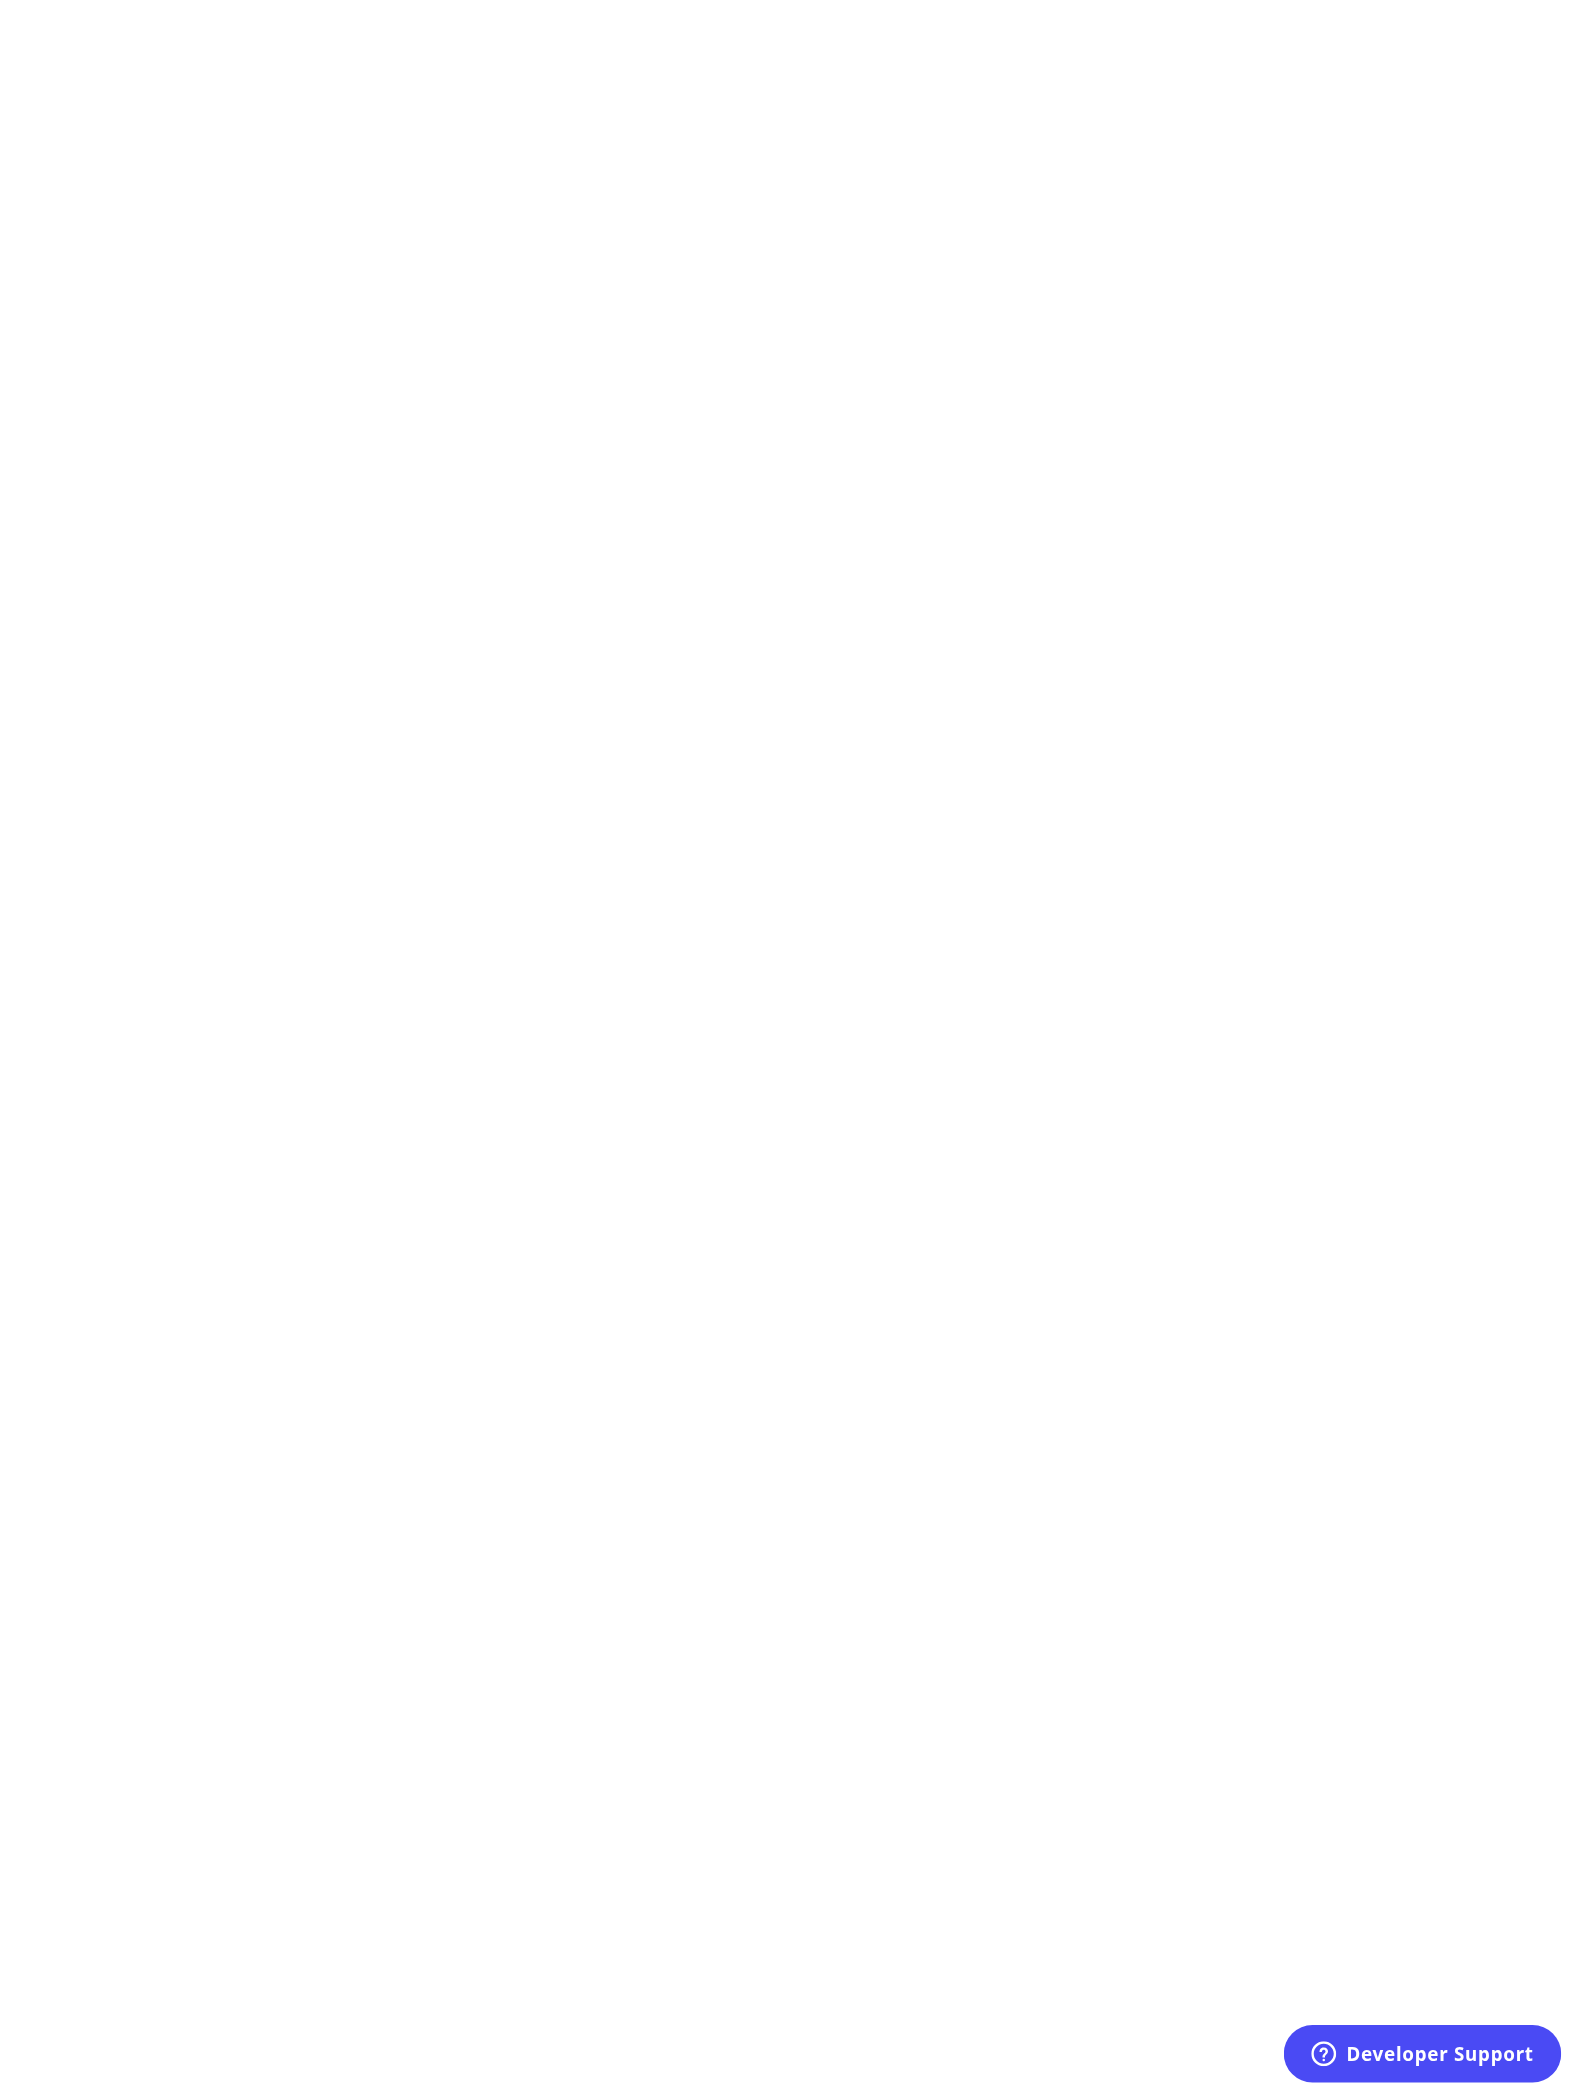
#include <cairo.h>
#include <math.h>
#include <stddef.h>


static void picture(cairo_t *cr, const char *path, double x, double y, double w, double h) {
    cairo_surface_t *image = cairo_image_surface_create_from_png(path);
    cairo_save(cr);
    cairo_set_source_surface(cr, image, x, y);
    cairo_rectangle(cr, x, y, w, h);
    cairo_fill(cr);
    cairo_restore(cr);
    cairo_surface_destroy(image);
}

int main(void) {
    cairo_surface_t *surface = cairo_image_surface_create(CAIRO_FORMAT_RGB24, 1586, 2099);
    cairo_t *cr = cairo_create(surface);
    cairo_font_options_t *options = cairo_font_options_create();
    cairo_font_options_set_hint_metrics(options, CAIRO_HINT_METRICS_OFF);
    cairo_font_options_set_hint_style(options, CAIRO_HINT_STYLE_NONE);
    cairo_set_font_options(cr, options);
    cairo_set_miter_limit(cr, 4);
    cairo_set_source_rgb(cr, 1, 1, 1);
    cairo_paint(cr);
    picture(cr, "img1.png", 1284, 2025, 278, 58);
    cairo_surface_write_to_png(surface, "page.png");
    cairo_font_options_destroy(options);
    cairo_destroy(cr);
    cairo_surface_destroy(surface);
    return 0;
}
